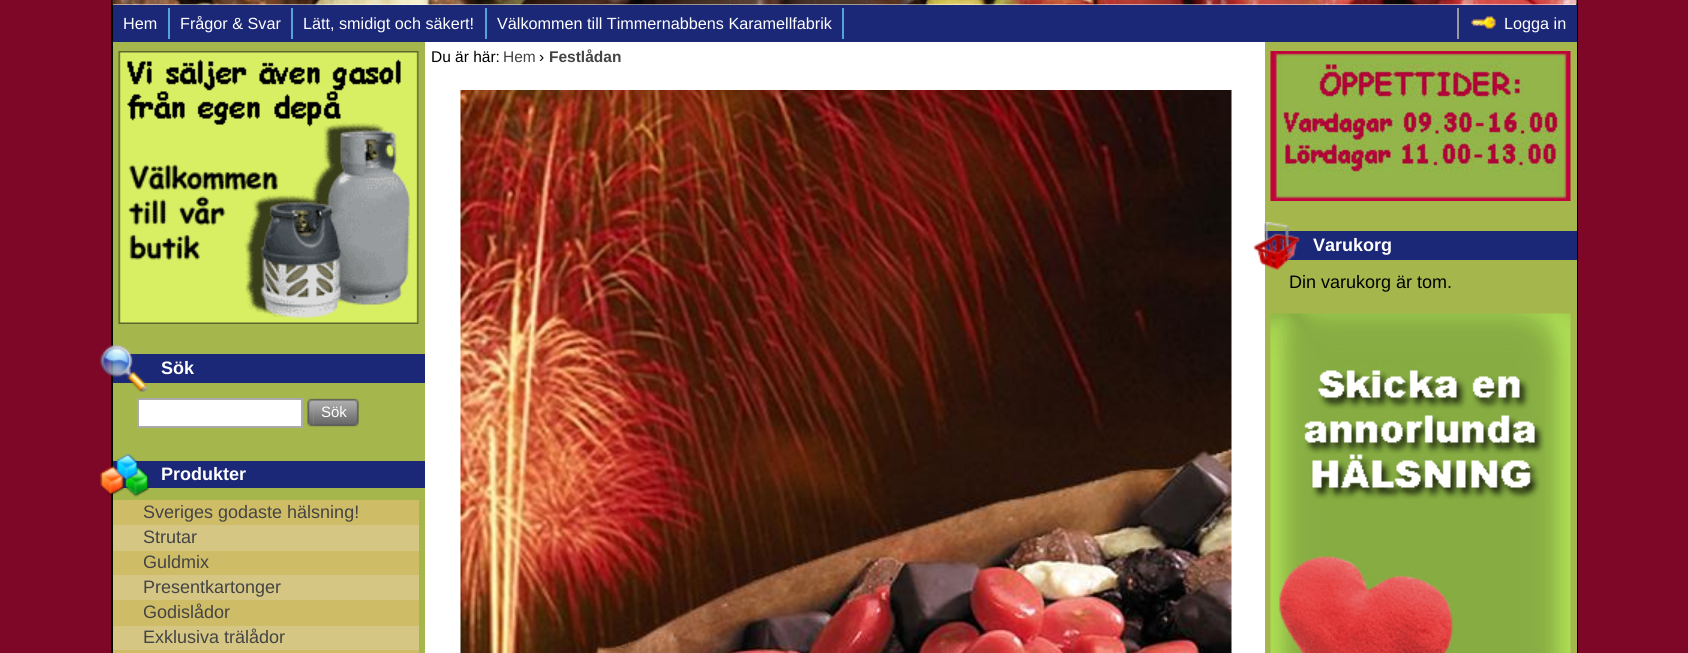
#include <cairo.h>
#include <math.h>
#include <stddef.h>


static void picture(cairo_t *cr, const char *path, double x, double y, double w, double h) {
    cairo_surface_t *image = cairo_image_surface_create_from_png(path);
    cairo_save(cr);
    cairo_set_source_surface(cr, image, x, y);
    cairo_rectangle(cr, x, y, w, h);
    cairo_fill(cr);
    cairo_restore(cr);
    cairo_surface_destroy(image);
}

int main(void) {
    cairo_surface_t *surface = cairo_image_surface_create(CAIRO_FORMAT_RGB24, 1688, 653);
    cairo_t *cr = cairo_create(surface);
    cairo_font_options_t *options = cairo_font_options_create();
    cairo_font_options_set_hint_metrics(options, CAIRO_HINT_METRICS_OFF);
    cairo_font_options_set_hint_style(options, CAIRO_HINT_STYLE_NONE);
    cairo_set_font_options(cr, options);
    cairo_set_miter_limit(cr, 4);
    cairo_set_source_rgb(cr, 0.494, 0.031, 0.157);
    cairo_paint(cr);
    cairo_set_source_rgb(cr, 1, 1, 1);
    cairo_rectangle(cr, 113, 4, 1463, 649);
    cairo_fill(cr);
    cairo_rectangle(cr, 112, -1, 1465, 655);
    cairo_set_source_rgb(cr, 0, 0, 0);
    cairo_stroke(cr);
    picture(cr, "img1.png", 112, 0, 1465, 5);
    cairo_set_source_rgb(cr, 0.106, 0.153, 0.467);
    cairo_rectangle(cr, 113, 5, 1464, 37);
    cairo_fill(cr);
    cairo_set_source_rgb(cr, 0.329, 0.635, 0.878);
    cairo_rectangle(cr, 168, 8, 2, 31);
    cairo_fill(cr);
    cairo_select_font_face(cr, "Liberation Sans", CAIRO_FONT_SLANT_NORMAL, CAIRO_FONT_WEIGHT_NORMAL);
    cairo_set_font_size(cr, 16.2);
    cairo_set_source_rgb(cr, 1, 1, 1);
    cairo_move_to(cr, 123, 29);
    cairo_show_text(cr, "Hem");
    cairo_set_source_rgb(cr, 0.329, 0.635, 0.878);
    cairo_rectangle(cr, 291, 8, 2, 31);
    cairo_fill(cr);
    cairo_set_source_rgb(cr, 1, 1, 1);
    cairo_move_to(cr, 180, 29);
    cairo_show_text(cr, "Frågor & Svar");
    cairo_set_source_rgb(cr, 0.329, 0.635, 0.878);
    cairo_rectangle(cr, 485, 8, 2, 31);
    cairo_fill(cr);
    cairo_set_source_rgb(cr, 1, 1, 1);
    cairo_move_to(cr, 303, 29);
    cairo_show_text(cr, "Lätt, smidigt och säkert!");
    cairo_set_source_rgb(cr, 0.329, 0.635, 0.878);
    cairo_rectangle(cr, 842, 8, 2, 31);
    cairo_fill(cr);
    cairo_set_source_rgb(cr, 1, 1, 1);
    cairo_move_to(cr, 497, 29);
    cairo_show_text(cr, "Välkommen till Timmernabbens Karamellfabrik");
    cairo_set_source_rgb(cr, 0.6, 0.6, 0.6);
    cairo_rectangle(cr, 1457, 8, 2, 31);
    cairo_fill(cr);
    picture(cr, "img2.png", 1471, 16, 25, 13);
    cairo_set_source_rgb(cr, 1, 1, 1);
    cairo_move_to(cr, 1504, 29);
    cairo_show_text(cr, "Logga in");
    cairo_set_font_size(cr, 15.5);
    cairo_set_source_rgb(cr, 0, 0, 0);
    cairo_move_to(cr, 431, 62);
    cairo_show_text(cr, "Du är här:");
    cairo_set_source_rgb(cr, 0.267, 0.267, 0.267);
    cairo_move_to(cr, 503, 62);
    cairo_show_text(cr, "Hem");
    cairo_set_source_rgb(cr, 0, 0, 0);
    cairo_move_to(cr, 539, 62);
    cairo_show_text(cr, "›");
    cairo_select_font_face(cr, "Liberation Sans", CAIRO_FONT_SLANT_NORMAL, CAIRO_FONT_WEIGHT_BOLD);
    cairo_set_source_rgb(cr, 0.267, 0.267, 0.267);
    cairo_move_to(cr, 549, 62);
    cairo_show_text(cr, "Festlådan");
    picture(cr, "img3.png", 460, 90, 772, 563);
    cairo_set_source_rgb(cr, 0.647, 0.714, 0.298);
    cairo_rectangle(cr, 1265, 42, 312, 611);
    cairo_fill(cr);
    picture(cr, "img4.png", 1270, 51, 301, 150);
    cairo_set_source_rgb(cr, 0.106, 0.153, 0.467);
    cairo_rectangle(cr, 1265, 231, 312, 29);
    cairo_fill(cr);
    picture(cr, "img5.png", 1253, 222, 47, 48);
    cairo_set_font_size(cr, 18);
    cairo_set_source_rgb(cr, 1, 1, 1);
    cairo_move_to(cr, 1313, 251);
    cairo_show_text(cr, "Varukorg");
    cairo_select_font_face(cr, "Liberation Sans", CAIRO_FONT_SLANT_NORMAL, CAIRO_FONT_WEIGHT_NORMAL);
    cairo_set_source_rgb(cr, 0, 0, 0);
    cairo_move_to(cr, 1289, 288);
    cairo_show_text(cr, "Din varukorg är tom.");
    picture(cr, "img6.png", 1270, 313, 301, 340);
    cairo_set_source_rgb(cr, 0.647, 0.714, 0.298);
    cairo_rectangle(cr, 113, 42, 312, 611);
    cairo_fill(cr);
    picture(cr, "img7.png", 118, 51, 301, 273);
    cairo_set_source_rgb(cr, 0.106, 0.153, 0.467);
    cairo_rectangle(cr, 113, 354, 312, 29);
    cairo_fill(cr);
    picture(cr, "img8.png", 100, 345, 48, 47);
    cairo_select_font_face(cr, "Liberation Sans", CAIRO_FONT_SLANT_NORMAL, CAIRO_FONT_WEIGHT_BOLD);
    cairo_set_source_rgb(cr, 1, 1, 1);
    cairo_move_to(cr, 161, 374);
    cairo_show_text(cr, "Sök");
    cairo_rectangle(cr, 138, 399, 164, 28);
    cairo_fill_preserve(cr);
    cairo_set_source_rgb(cr, 0.667, 0.667, 0.667);
    cairo_stroke(cr);
    picture(cr, "img9.png", 307, 398, 7, 29);
    picture(cr, "img10.png", 313, 398, 46, 29);
    cairo_select_font_face(cr, "Liberation Sans", CAIRO_FONT_SLANT_NORMAL, CAIRO_FONT_WEIGHT_NORMAL);
    cairo_set_font_size(cr, 15);
    cairo_set_source_rgb(cr, 1, 1, 1);
    cairo_move_to(cr, 321, 417);
    cairo_show_text(cr, "Sök");
    cairo_set_source_rgb(cr, 0.106, 0.153, 0.467);
    cairo_rectangle(cr, 113, 461, 312, 27);
    cairo_fill(cr);
    picture(cr, "img11.png", 100, 454, 49, 43);
    cairo_select_font_face(cr, "Liberation Sans", CAIRO_FONT_SLANT_NORMAL, CAIRO_FONT_WEIGHT_BOLD);
    cairo_set_font_size(cr, 18);
    cairo_set_source_rgb(cr, 1, 1, 1);
    cairo_move_to(cr, 161, 480);
    cairo_show_text(cr, "Produkter");
    cairo_set_source_rgb(cr, 0.812, 0.737, 0.404);
    cairo_rectangle(cr, 113, 500, 306, 25);
    cairo_fill(cr);
    cairo_select_font_face(cr, "Liberation Sans", CAIRO_FONT_SLANT_NORMAL, CAIRO_FONT_WEIGHT_NORMAL);
    cairo_set_source_rgb(cr, 0.267, 0.267, 0.267);
    cairo_move_to(cr, 143, 518);
    cairo_show_text(cr, "Sveriges godaste hälsning!");
    cairo_set_source_rgb(cr, 0.835, 0.776, 0.518);
    cairo_rectangle(cr, 113, 525, 306, 26);
    cairo_fill(cr);
    cairo_set_source_rgb(cr, 0.267, 0.267, 0.267);
    cairo_move_to(cr, 143, 543);
    cairo_show_text(cr, "Strutar");
    cairo_set_source_rgb(cr, 0.812, 0.737, 0.404);
    cairo_rectangle(cr, 113, 551, 306, 24);
    cairo_fill(cr);
    cairo_set_source_rgb(cr, 0.267, 0.267, 0.267);
    cairo_move_to(cr, 143, 568);
    cairo_show_text(cr, "Guldmix");
    cairo_set_source_rgb(cr, 0.835, 0.776, 0.518);
    cairo_rectangle(cr, 113, 575, 306, 25);
    cairo_fill(cr);
    cairo_set_source_rgb(cr, 0.267, 0.267, 0.267);
    cairo_move_to(cr, 143, 593);
    cairo_show_text(cr, "Presentkartonger");
    cairo_set_source_rgb(cr, 0.812, 0.737, 0.404);
    cairo_rectangle(cr, 113, 600, 306, 26);
    cairo_fill(cr);
    cairo_set_source_rgb(cr, 0.267, 0.267, 0.267);
    cairo_move_to(cr, 143, 618);
    cairo_show_text(cr, "Godislådor");
    cairo_set_source_rgb(cr, 0.835, 0.776, 0.518);
    cairo_rectangle(cr, 113, 626, 306, 24);
    cairo_fill(cr);
    cairo_set_source_rgb(cr, 0.267, 0.267, 0.267);
    cairo_move_to(cr, 143, 643);
    cairo_show_text(cr, "Exklusiva trälådor");
    cairo_set_source_rgb(cr, 0.812, 0.737, 0.404);
    cairo_rectangle(cr, 113, 650, 306, 3);
    cairo_fill(cr);
    cairo_surface_write_to_png(surface, "page.png");
    cairo_font_options_destroy(options);
    cairo_destroy(cr);
    cairo_surface_destroy(surface);
    return 0;
}
